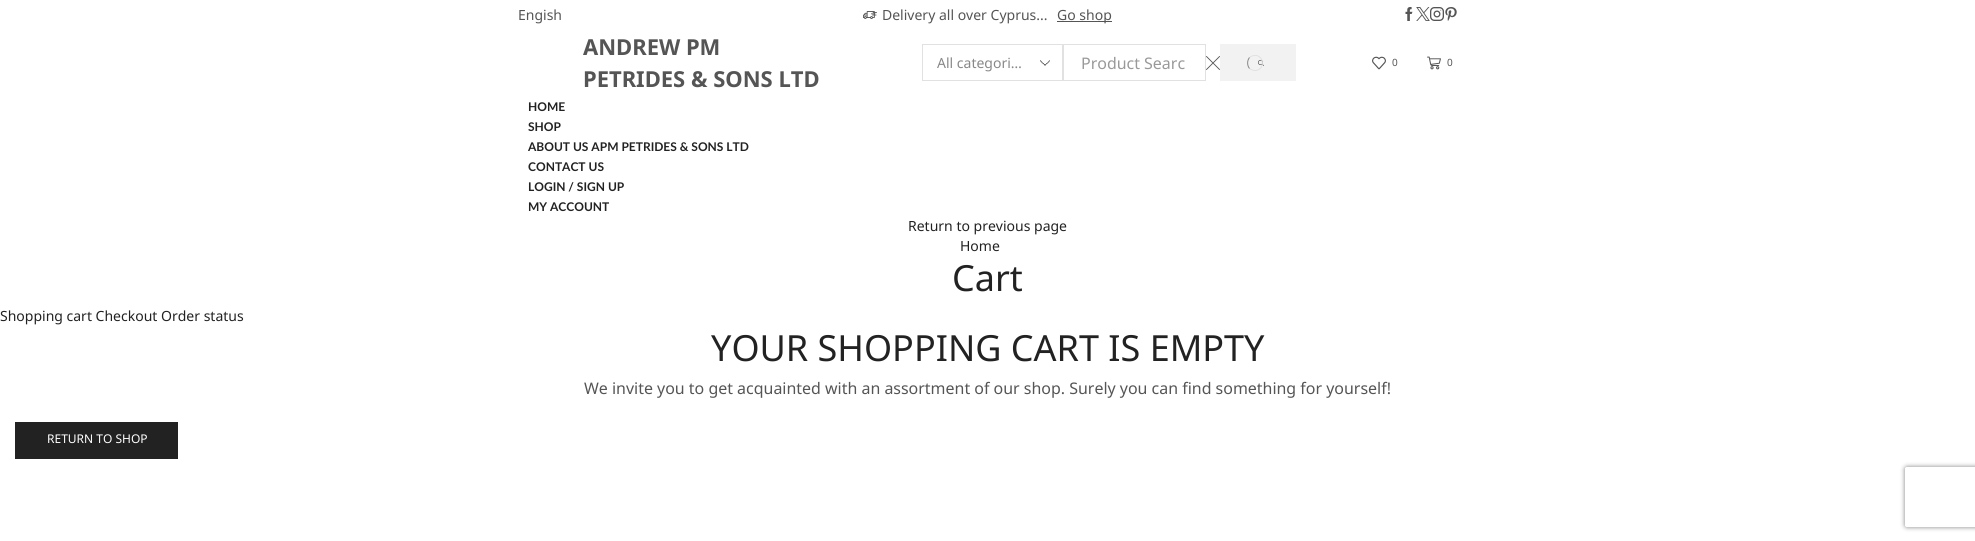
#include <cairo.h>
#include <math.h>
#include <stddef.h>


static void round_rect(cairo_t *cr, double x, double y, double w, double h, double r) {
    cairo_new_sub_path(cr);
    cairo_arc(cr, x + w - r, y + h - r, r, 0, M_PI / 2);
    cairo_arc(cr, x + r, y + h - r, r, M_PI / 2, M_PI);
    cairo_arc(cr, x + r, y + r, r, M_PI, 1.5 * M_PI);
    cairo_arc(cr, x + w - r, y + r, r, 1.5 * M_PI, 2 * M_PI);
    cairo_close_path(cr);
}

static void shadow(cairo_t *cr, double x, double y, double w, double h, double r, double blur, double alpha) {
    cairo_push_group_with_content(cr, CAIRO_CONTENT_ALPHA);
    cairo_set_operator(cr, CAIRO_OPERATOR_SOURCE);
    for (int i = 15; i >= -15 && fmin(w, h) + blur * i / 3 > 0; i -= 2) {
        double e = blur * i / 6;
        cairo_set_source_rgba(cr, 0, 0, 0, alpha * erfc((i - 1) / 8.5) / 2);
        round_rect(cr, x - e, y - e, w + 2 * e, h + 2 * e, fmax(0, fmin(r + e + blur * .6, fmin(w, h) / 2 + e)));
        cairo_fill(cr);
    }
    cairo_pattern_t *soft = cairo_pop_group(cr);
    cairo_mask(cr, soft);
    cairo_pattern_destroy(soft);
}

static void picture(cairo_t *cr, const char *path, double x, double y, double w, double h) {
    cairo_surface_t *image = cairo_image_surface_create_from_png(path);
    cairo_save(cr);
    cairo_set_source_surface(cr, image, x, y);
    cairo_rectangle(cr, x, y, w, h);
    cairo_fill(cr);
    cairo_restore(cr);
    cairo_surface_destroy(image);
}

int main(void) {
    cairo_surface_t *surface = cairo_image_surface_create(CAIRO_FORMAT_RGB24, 1975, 541);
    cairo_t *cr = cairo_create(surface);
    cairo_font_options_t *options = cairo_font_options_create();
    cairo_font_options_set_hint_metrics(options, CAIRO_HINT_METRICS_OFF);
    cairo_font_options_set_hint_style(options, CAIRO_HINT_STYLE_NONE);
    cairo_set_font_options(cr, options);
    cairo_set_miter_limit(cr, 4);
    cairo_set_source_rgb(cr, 1, 1, 1);
    cairo_paint(cr);
    cairo_select_font_face(cr, "Noto Sans", CAIRO_FONT_SLANT_NORMAL, CAIRO_FONT_WEIGHT_NORMAL);
    cairo_set_font_size(cr, 14);
    cairo_set_source_rgb(cr, 0.333, 0.333, 0.333);
    cairo_move_to(cr, 518, 20);
    cairo_show_text(cr, "Engish");
    picture(cr, "img1.png", 863, 11, 14, 8);
    cairo_move_to(cr, 882, 20);
    cairo_show_text(cr, "Delivery all over Cyprus...");
    cairo_rectangle(cr, 1057, 21, 55, 1);
    cairo_fill(cr);
    cairo_move_to(cr, 1057, 20);
    cairo_show_text(cr, "Go shop");
    picture(cr, "img2.png", 1405, 7, 8, 14);
    picture(cr, "img3.png", 1416, 7, 14, 14);
    picture(cr, "img4.png", 1430, 7, 14, 14);
    picture(cr, "img5.png", 1445, 7, 12, 14);
    cairo_select_font_face(cr, "Noto Sans", CAIRO_FONT_SLANT_NORMAL, CAIRO_FONT_WEIGHT_BOLD);
    cairo_set_font_size(cr, 22);
    cairo_move_to(cr, 583, 55);
    cairo_show_text(cr, "ANDREW PM");
    cairo_move_to(cr, 583, 87);
    cairo_show_text(cr, "PETRIDES & SONS LTD");
    picture(cr, "img6.png", 1040, 60, 10, 6);
    cairo_rectangle(cr, 922.5, 44.5, 140, 36);
    cairo_set_source_rgb(cr, 0.882, 0.882, 0.882);
    cairo_set_line_width(cr, 1);
    cairo_stroke(cr);
    cairo_select_font_face(cr, "Noto Sans", CAIRO_FONT_SLANT_NORMAL, CAIRO_FONT_WEIGHT_NORMAL);
    cairo_set_font_size(cr, 14);
    cairo_set_source_rgb(cr, 0.533, 0.533, 0.533);
    cairo_move_to(cr, 937, 68);
    cairo_show_text(cr, "All categori…");
    cairo_rectangle(cr, 1063.5, 44.5, 142, 36);
    cairo_set_source_rgb(cr, 0.882, 0.882, 0.882);
    cairo_stroke(cr);
    cairo_set_font_size(cr, 15.95);
    cairo_set_source_rgb(cr, 0.6, 0.6, 0.6);
    cairo_move_to(cr, 1081, 69);
    cairo_show_text(cr, "Product Searc");
    picture(cr, "img7.png", 1206, 56, 14, 14);
    cairo_set_source_rgb(cr, 0.949, 0.949, 0.949);
    cairo_rectangle(cr, 1220, 44, 76, 37);
    cairo_fill(cr);
    picture(cr, "img8.png", 1258, 60, 6, 6);
    cairo_new_path(cr);
    cairo_move_to(cr, 1249.5, 57.5);
    cairo_curve_to(cr, 1251.5, 56, 1254, 55, 1256.5, 55.5);
    cairo_curve_to(cr, 1265, 57.5, 1264, 70.5, 1255, 70.5);
    cairo_curve_to(cr, 1253, 70.5, 1251, 69.5, 1249.5, 68.5);
    cairo_set_source_rgb(cr, 0.882, 0.882, 0.882);
    cairo_stroke(cr);
    cairo_new_path(cr);
    cairo_move_to(cr, 1249.5, 68.5);
    cairo_curve_to(cr, 1247, 65.5, 1247, 60.5, 1249.5, 57.5);
    cairo_set_source_rgb(cr, 0.533, 0.533, 0.533);
    cairo_stroke(cr);
    picture(cr, "img9.png", 1372, 56, 14, 14);
    cairo_set_font_size(cr, 10);
    cairo_set_source_rgb(cr, 0.333, 0.333, 0.333);
    cairo_move_to(cr, 1392, 66);
    cairo_show_text(cr, "0");
    picture(cr, "img10.png", 1427, 56, 14, 14);
    cairo_move_to(cr, 1447, 66);
    cairo_show_text(cr, "0");
    cairo_select_font_face(cr, "Lato", CAIRO_FONT_SLANT_NORMAL, CAIRO_FONT_WEIGHT_BOLD);
    cairo_set_font_size(cr, 12);
    cairo_set_source_rgb(cr, 0.133, 0.133, 0.133);
    cairo_move_to(cr, 528, 111);
    cairo_show_text(cr, "HOME");
    cairo_move_to(cr, 528, 131);
    cairo_show_text(cr, "SHOP");
    cairo_move_to(cr, 528, 151);
    cairo_show_text(cr, "ABOUT US APM PETRIDES & SONS LTD");
    cairo_move_to(cr, 528, 171);
    cairo_show_text(cr, "CONTACT US");
    cairo_move_to(cr, 528, 191);
    cairo_show_text(cr, "LOGIN / SIGN UP");
    cairo_move_to(cr, 528, 211);
    cairo_show_text(cr, "MY ACCOUNT");
    cairo_select_font_face(cr, "Noto Sans", CAIRO_FONT_SLANT_NORMAL, CAIRO_FONT_WEIGHT_NORMAL);
    cairo_set_font_size(cr, 14);
    cairo_move_to(cr, 908, 231);
    cairo_show_text(cr, "Return to previous page");
    cairo_move_to(cr, 960, 251);
    cairo_show_text(cr, "Home");
    cairo_set_font_size(cr, 36);
    cairo_move_to(cr, 952, 291);
    cairo_show_text(cr, "Cart");
    cairo_set_font_size(cr, 14);
    cairo_move_to(cr, 0, 321);
    cairo_show_text(cr, "Shopping cart Checkout Order status");
    cairo_set_font_size(cr, 36);
    cairo_move_to(cr, 711, 361);
    cairo_show_text(cr, "YOUR SHOPPING CART IS EMPTY");
    cairo_set_font_size(cr, 15.95);
    cairo_set_source_rgb(cr, 0.333, 0.333, 0.333);
    cairo_move_to(cr, 584, 394);
    cairo_show_text(cr, "We invite you to get acquainted with an assortment of our shop. Surely you can find something for yourself!");
    cairo_set_source_rgb(cr, 0.133, 0.133, 0.133);
    cairo_rectangle(cr, 15, 422, 163, 37);
    cairo_fill(cr);
    cairo_set_font_size(cr, 12);
    cairo_set_source_rgb(cr, 1, 1, 1);
    cairo_move_to(cr, 47, 443);
    cairo_show_text(cr, "RETURN TO SHOP");
    cairo_save(cr);
    cairo_set_fill_rule(cr, CAIRO_FILL_RULE_EVEN_ODD);
    cairo_new_path(cr);
    cairo_move_to(cr, 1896, 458);
    cairo_line_to(cr, 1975, 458);
    cairo_line_to(cr, 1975, 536);
    cairo_line_to(cr, 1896, 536);
    cairo_close_path(cr);
    cairo_move_to(cr, 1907, 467);
    cairo_line_to(cr, 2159, 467);
    cairo_curve_to(cr, 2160, 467, 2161, 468, 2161, 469);
    cairo_line_to(cr, 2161, 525);
    cairo_curve_to(cr, 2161, 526, 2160, 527, 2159, 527);
    cairo_line_to(cr, 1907, 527);
    cairo_curve_to(cr, 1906, 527, 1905, 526, 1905, 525);
    cairo_line_to(cr, 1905, 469);
    cairo_curve_to(cr, 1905, 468, 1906, 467, 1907, 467);
    cairo_close_path(cr);
    cairo_clip(cr);
    cairo_set_source_rgb(cr, 0.502, 0.502, 0.502);
    shadow(cr, 1905, 467, 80, 60, 2, 2.5, 1);
    cairo_restore(cr);
    cairo_surface_write_to_png(surface, "page.png");
    cairo_font_options_destroy(options);
    cairo_destroy(cr);
    cairo_surface_destroy(surface);
    return 0;
}
